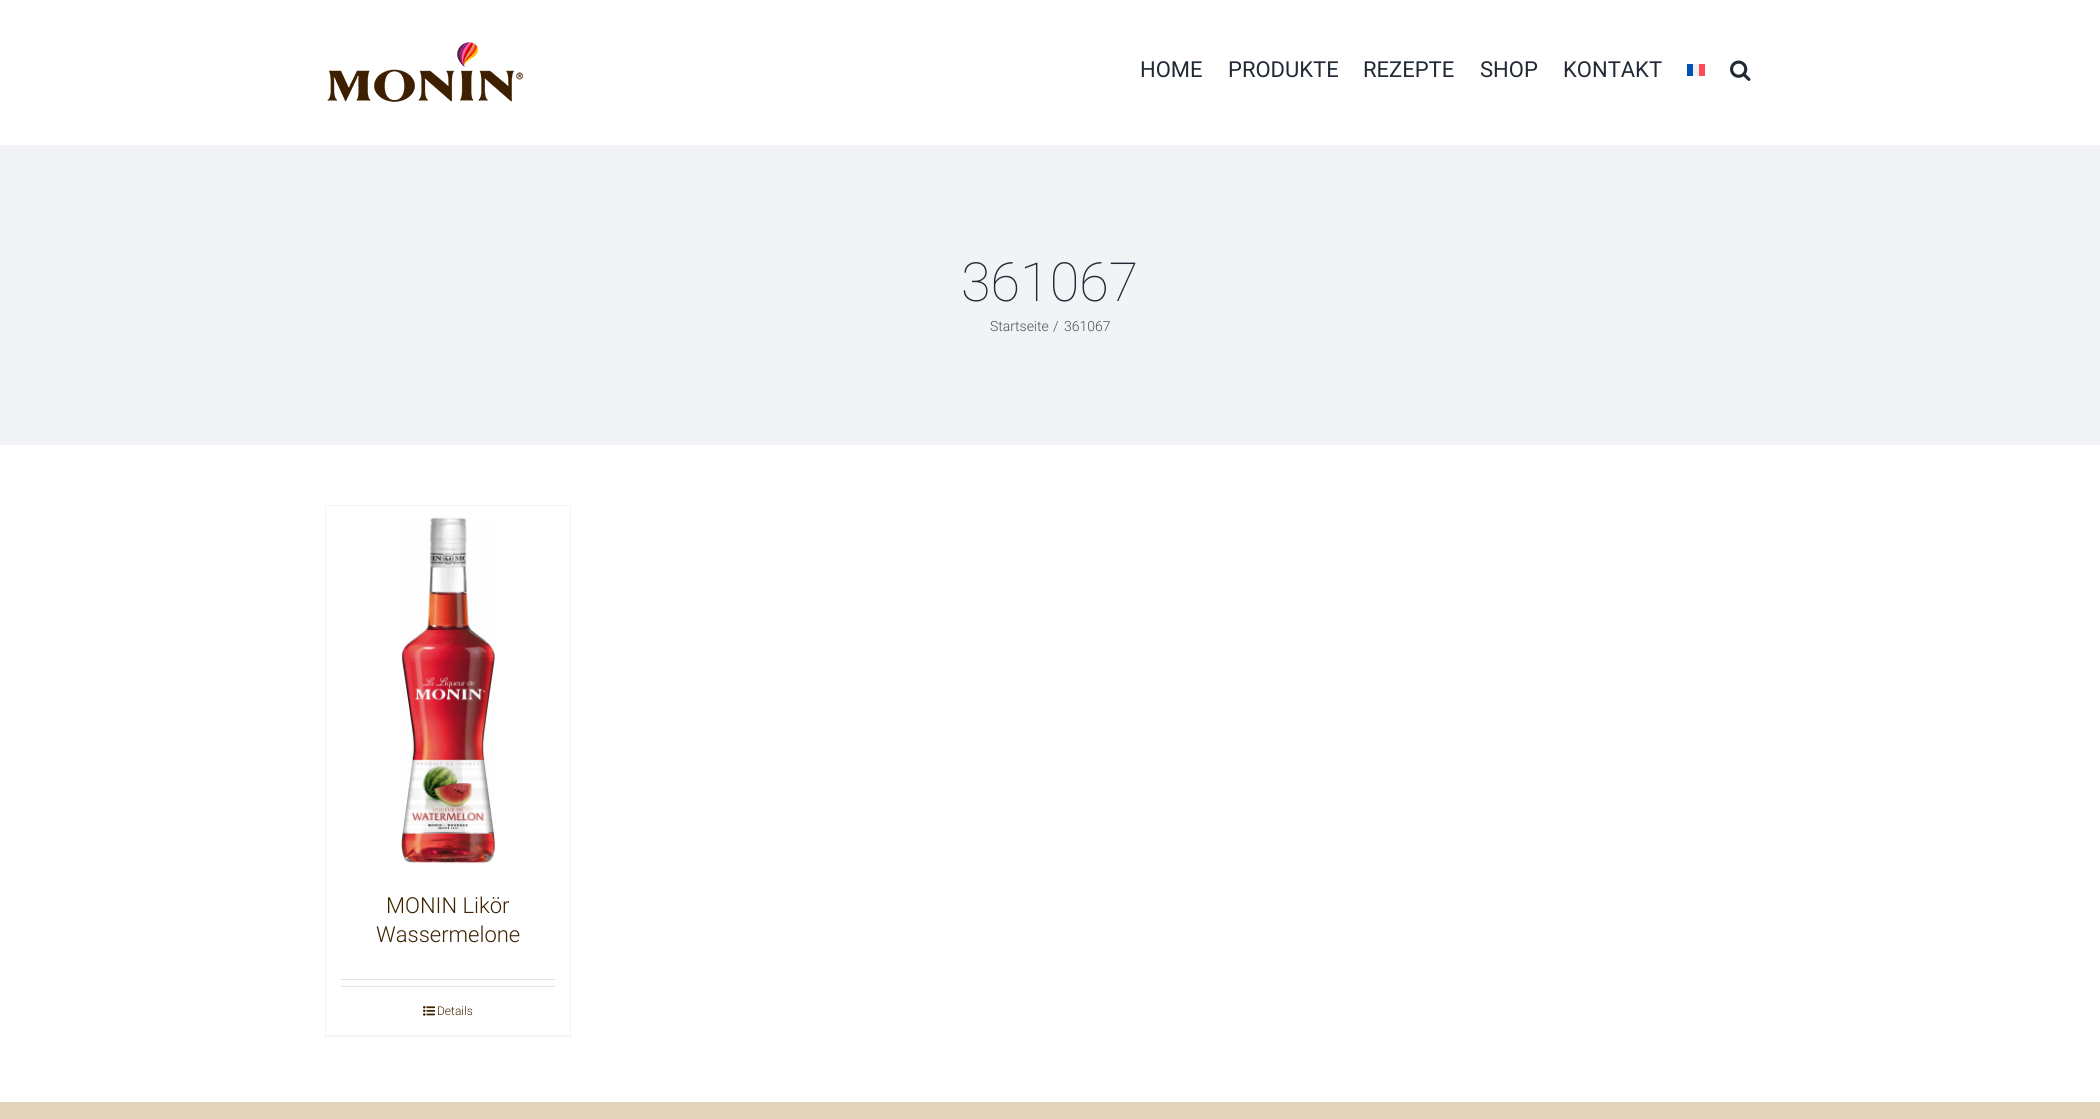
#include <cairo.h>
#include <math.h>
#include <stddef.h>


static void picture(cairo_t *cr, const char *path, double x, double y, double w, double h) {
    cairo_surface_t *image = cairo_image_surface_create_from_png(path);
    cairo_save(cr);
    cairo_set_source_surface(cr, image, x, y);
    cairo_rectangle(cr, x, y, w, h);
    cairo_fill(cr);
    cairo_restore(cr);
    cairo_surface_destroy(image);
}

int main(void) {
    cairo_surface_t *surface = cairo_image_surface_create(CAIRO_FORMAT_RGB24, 2100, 1119);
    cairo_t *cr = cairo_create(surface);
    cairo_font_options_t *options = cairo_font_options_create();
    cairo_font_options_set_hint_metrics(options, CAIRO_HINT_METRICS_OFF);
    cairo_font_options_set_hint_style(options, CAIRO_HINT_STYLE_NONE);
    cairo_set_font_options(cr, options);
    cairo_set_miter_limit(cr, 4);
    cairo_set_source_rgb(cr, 1, 1, 1);
    cairo_paint(cr);
    picture(cr, "img1.png", 327, 42, 196, 60);
    cairo_select_font_face(cr, "Roboto", CAIRO_FONT_SLANT_NORMAL, CAIRO_FONT_WEIGHT_NORMAL);
    cairo_set_font_size(cr, 22);
    cairo_set_source_rgb(cr, 0.129, 0.161, 0.204);
    cairo_move_to(cr, 1140, 77);
    cairo_show_text(cr, "HOME");
    cairo_move_to(cr, 1228, 77);
    cairo_show_text(cr, "PRODUKTE");
    cairo_move_to(cr, 1363, 77);
    cairo_show_text(cr, "REZEPTE");
    cairo_move_to(cr, 1480, 77);
    cairo_show_text(cr, "SHOP");
    cairo_move_to(cr, 1563, 77);
    cairo_show_text(cr, "KONTAKT");
    cairo_set_source_rgb(cr, 0.941, 0.941, 0.941);
    cairo_rectangle(cr, 1693, 64, 6, 12);
    cairo_fill(cr);
    cairo_set_source_rgb(cr, 1, 0.294, 0.333);
    cairo_rectangle(cr, 1699, 64, 6, 12);
    cairo_fill(cr);
    cairo_set_source_rgb(cr, 0, 0.322, 0.706);
    cairo_rectangle(cr, 1687, 64, 6, 12);
    cairo_fill(cr);
    picture(cr, "img2.png", 1730, 60, 21, 21);
    cairo_set_source_rgb(cr, 0.949, 0.953, 0.961);
    cairo_rectangle(cr, 0, 145, 2100, 300);
    cairo_fill(cr);
    cairo_select_font_face(cr, "Roboto Thin", CAIRO_FONT_SLANT_NORMAL, CAIRO_FONT_WEIGHT_NORMAL);
    cairo_set_font_size(cr, 54);
    cairo_set_source_rgb(cr, 0.129, 0.161, 0.204);
    cairo_move_to(cr, 961, 301);
    cairo_show_text(cr, "361067");
    cairo_select_font_face(cr, "Roboto Light", CAIRO_FONT_SLANT_NORMAL, CAIRO_FONT_WEIGHT_NORMAL);
    cairo_set_font_size(cr, 14);
    cairo_set_source_rgb(cr, 0.29, 0.306, 0.341);
    cairo_move_to(cr, 990, 331);
    cairo_show_text(cr, "Startseite");
    cairo_move_to(cr, 1053, 331);
    cairo_show_text(cr, "/");
    cairo_move_to(cr, 1064, 331);
    cairo_show_text(cr, "361067");
    cairo_set_source_rgb(cr, 0.949, 0.953, 0.961);
    cairo_rectangle(cr, 325, 505, 246, 1);
    cairo_fill(cr);
    cairo_rectangle(cr, 570, 505, 1, 532);
    cairo_fill(cr);
    cairo_rectangle(cr, 325, 1035, 246, 2);
    cairo_fill(cr);
    cairo_rectangle(cr, 325, 505, 1, 532);
    cairo_fill(cr);
    picture(cr, "img3.png", 400, 517, 97, 348);
    cairo_set_font_size(cr, 22);
    cairo_set_source_rgb(cr, 0.231, 0.137, 0);
    cairo_move_to(cr, 386, 913);
    cairo_show_text(cr, "MONIN Likör");
    cairo_move_to(cr, 376, 942);
    cairo_show_text(cr, "Wassermelone");
    cairo_set_source_rgb(cr, 0.886, 0.886, 0.886);
    cairo_rectangle(cr, 341, 979, 214, 1);
    cairo_fill(cr);
    cairo_rectangle(cr, 341, 986, 214, 1);
    cairo_fill(cr);
    picture(cr, "img4.png", 423, 1006, 12, 10);
    cairo_set_font_size(cr, 12);
    cairo_set_source_rgb(cr, 0.231, 0.137, 0);
    cairo_move_to(cr, 437, 1015);
    cairo_show_text(cr, "Details");
    cairo_set_source_rgb(cr, 0.89, 0.835, 0.733);
    cairo_rectangle(cr, 0, 1102, 2100, 17);
    cairo_fill(cr);
    cairo_surface_write_to_png(surface, "page.png");
    cairo_font_options_destroy(options);
    cairo_destroy(cr);
    cairo_surface_destroy(surface);
    return 0;
}
